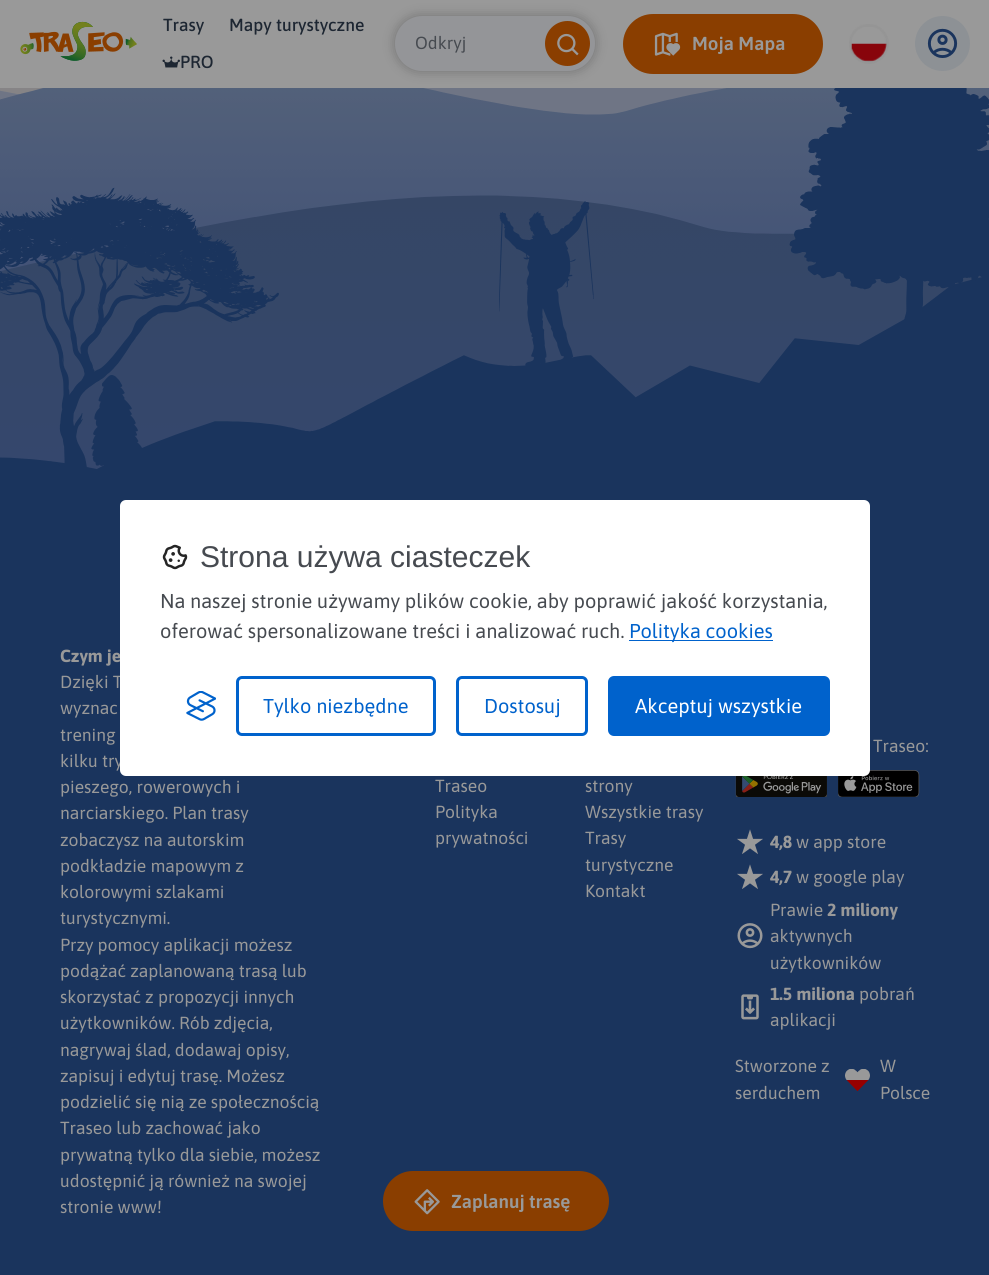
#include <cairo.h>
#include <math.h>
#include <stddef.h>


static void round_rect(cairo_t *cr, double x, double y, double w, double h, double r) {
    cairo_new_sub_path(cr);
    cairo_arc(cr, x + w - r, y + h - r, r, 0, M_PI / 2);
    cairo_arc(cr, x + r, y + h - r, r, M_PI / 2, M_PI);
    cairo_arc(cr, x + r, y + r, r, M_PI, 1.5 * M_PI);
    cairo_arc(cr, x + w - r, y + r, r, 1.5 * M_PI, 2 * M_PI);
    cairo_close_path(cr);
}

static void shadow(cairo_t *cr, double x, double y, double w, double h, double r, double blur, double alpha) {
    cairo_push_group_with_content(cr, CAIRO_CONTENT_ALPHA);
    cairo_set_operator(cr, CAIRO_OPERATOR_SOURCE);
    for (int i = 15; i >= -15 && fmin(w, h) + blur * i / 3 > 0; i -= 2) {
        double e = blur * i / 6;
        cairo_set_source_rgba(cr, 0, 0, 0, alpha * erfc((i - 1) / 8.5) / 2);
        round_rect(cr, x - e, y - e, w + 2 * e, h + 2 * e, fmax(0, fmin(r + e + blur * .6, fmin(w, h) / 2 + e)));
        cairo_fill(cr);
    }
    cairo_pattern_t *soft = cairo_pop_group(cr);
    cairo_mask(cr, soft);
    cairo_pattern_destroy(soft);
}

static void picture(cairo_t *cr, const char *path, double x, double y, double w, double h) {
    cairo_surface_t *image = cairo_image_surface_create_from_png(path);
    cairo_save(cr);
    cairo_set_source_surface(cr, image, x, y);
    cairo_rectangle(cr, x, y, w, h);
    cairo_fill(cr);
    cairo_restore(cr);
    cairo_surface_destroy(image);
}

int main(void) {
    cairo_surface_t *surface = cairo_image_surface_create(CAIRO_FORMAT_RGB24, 989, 1275);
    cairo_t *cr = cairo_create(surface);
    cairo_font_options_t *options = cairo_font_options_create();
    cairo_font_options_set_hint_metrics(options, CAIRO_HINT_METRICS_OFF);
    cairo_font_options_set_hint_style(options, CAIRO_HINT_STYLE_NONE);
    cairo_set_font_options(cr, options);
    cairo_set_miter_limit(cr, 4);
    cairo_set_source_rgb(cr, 0.573, 0.518, 0.471);
    cairo_paint(cr);
    cairo_set_source_rgb(cr, 0.6, 0.6, 0.6);
    cairo_rectangle(cr, 0, 0, 989, 88);
    cairo_fill(cr);
    picture(cr, "img1.png", 20, 21, 117, 40);
    cairo_select_font_face(cr, "Asap Medium", CAIRO_FONT_SLANT_NORMAL, CAIRO_FONT_WEIGHT_NORMAL);
    cairo_set_font_size(cr, 17.5);
    cairo_set_source_rgb(cr, 0.114, 0.149, 0.196);
    cairo_move_to(cr, 163, 31);
    cairo_show_text(cr, "Trasy");
    cairo_move_to(cr, 229, 31);
    cairo_show_text(cr, "Mapy turystyczne");
    picture(cr, "img2.png", 162, 56, 18, 12);
    cairo_move_to(cr, 180, 68);
    cairo_show_text(cr, "PRO");
    picture(cr, "img9.png", 0, 88, 727, 27);
    picture(cr, "img10.png", 0, 88, 727, 27);
    picture(cr, "img11.png", 0, 88, 989, 184);
    cairo_set_source_rgb(cr, 0, 0, 0);
    shadow(cr, 395, 16, 200, 55, 27.5, 6, 0.25);
    cairo_set_source_rgb(cr, 0.58, 0.584, 0.596);
    round_rect(cr, 395, 16, 200, 55, 27.5);
    cairo_fill(cr);
    cairo_select_font_face(cr, "Asap", CAIRO_FONT_SLANT_NORMAL, CAIRO_FONT_WEIGHT_NORMAL);
    cairo_set_source_rgb(cr, 0.275, 0.29, 0.314);
    cairo_move_to(cr, 415, 49);
    cairo_show_text(cr, "Odkryj");
    cairo_set_source_rgb(cr, 0.541, 0.243, 0);
    cairo_new_path(cr);
    cairo_arc(cr, 567.5, 43.5, 22.5, 0, 2 * M_PI);
    cairo_fill(cr);
    picture(cr, "img3.png", 557, 33, 22, 23);
    round_rect(cr, 623, 14, 200, 60, 30);
    cairo_fill(cr);
    picture(cr, "img4.png", 654, 32, 27, 24);
    cairo_select_font_face(cr, "Asap SemiBold", CAIRO_FONT_SLANT_NORMAL, CAIRO_FONT_WEIGHT_NORMAL);
    cairo_set_font_size(cr, 18.75);
    cairo_set_source_rgb(cr, 0.6, 0.6, 0.6);
    cairo_move_to(cr, 692, 50);
    cairo_show_text(cr, "Moja Mapa");
    picture(cr, "img5.png", 849, 24, 40, 40);
    cairo_set_source_rgb(cr, 0.553, 0.569, 0.584);
    cairo_arc(cr, 942.5, 43.5, 27.5, 0, 2 * M_PI);
    cairo_fill(cr);
    picture(cr, "img6.png", 927, 28, 31, 30);
    picture(cr, "img17.png", 0, 195, 983, 274);
    picture(cr, "img15.png", 0, 277, 989, 264);
    cairo_set_source_rgb(cr, 0.102, 0.204, 0.365);
    cairo_rectangle(cr, 0, 541, 989, 734);
    cairo_fill(cr);
    cairo_select_font_face(cr, "Asap", CAIRO_FONT_SLANT_NORMAL, CAIRO_FONT_WEIGHT_BOLD);
    cairo_set_font_size(cr, 17.5);
    cairo_set_source_rgb(cr, 0.6, 0.6, 0.6);
    cairo_move_to(cr, 60, 662);
    cairo_show_text(cr, "Czym je");
    cairo_select_font_face(cr, "Asap", CAIRO_FONT_SLANT_NORMAL, CAIRO_FONT_WEIGHT_NORMAL);
    cairo_move_to(cr, 60, 688);
    cairo_show_text(cr, "Dzięki T");
    cairo_move_to(cr, 60, 767);
    cairo_show_text(cr, "kilku try");
    picture(cr, "img19.png", 838, 770, 82, 27);
    cairo_set_source_rgb(cr, 1, 1, 1);
    round_rect(cr, 120, 500, 750, 276, 6);
    cairo_fill(cr);
    picture(cr, "img7.png", 162, 544, 26, 26);
    cairo_select_font_face(cr, "Liberation Sans", CAIRO_FONT_SLANT_NORMAL, CAIRO_FONT_WEIGHT_NORMAL);
    cairo_set_font_size(cr, 30);
    cairo_set_source_rgb(cr, 0.275, 0.29, 0.314);
    cairo_move_to(cr, 200, 567);
    cairo_show_text(cr, "Strona używa ciasteczek");
    cairo_select_font_face(cr, "Asap", CAIRO_FONT_SLANT_NORMAL, CAIRO_FONT_WEIGHT_NORMAL);
    cairo_set_font_size(cr, 20);
    cairo_move_to(cr, 160, 608);
    cairo_show_text(cr, "Na naszej stronie używamy plików cookie, aby poprawić jakość korzystania,");
    cairo_move_to(cr, 160, 638);
    cairo_show_text(cr, "oferować spersonalizowane treści i analizować ruch.");
    cairo_set_source_rgb(cr, 0, 0.384, 0.8);
    cairo_rectangle(cr, 629, 640, 144, 1);
    cairo_fill(cr);
    cairo_move_to(cr, 629, 638);
    cairo_show_text(cr, "Polityka cookies");
    picture(cr, "img8.png", 186, 691, 30, 30);
    round_rect(cr, 237.5, 677.5, 197, 57, 4.5);
    cairo_set_line_width(cr, 3);
    cairo_stroke(cr);
    cairo_move_to(cr, 263, 713);
    cairo_show_text(cr, "Tylko niezbędne");
    round_rect(cr, 457.5, 677.5, 129, 57, 4.5);
    cairo_stroke(cr);
    cairo_move_to(cr, 484, 713);
    cairo_show_text(cr, "Dostosuj");
    round_rect(cr, 609.5, 677.5, 219, 57, 4.5);
    cairo_fill_preserve(cr);
    cairo_stroke(cr);
    cairo_set_source_rgb(cr, 1, 1, 1);
    cairo_move_to(cr, 635, 713);
    cairo_show_text(cr, "Akceptuj wszystkie");
    picture(cr, "img12.png", 0, 187, 279, 280);
    picture(cr, "img13.png", 499, 201, 95, 165);
    picture(cr, "img14.png", 789, 88, 200, 232);
    picture(cr, "img16.png", 91, 375, 51, 91);
    cairo_set_font_size(cr, 17.5);
    cairo_set_source_rgb(cr, 0.6, 0.6, 0.6);
    cairo_move_to(cr, 60, 714);
    cairo_show_text(cr, "wyznac");
    cairo_move_to(cr, 60, 741);
    cairo_show_text(cr, "trening");
    cairo_move_to(cr, 60, 793);
    cairo_show_text(cr, "pieszego, rowerowych i");
    cairo_move_to(cr, 60, 819);
    cairo_show_text(cr, "narciarskiego. Plan trasy");
    cairo_move_to(cr, 60, 846);
    cairo_show_text(cr, "zobaczysz na autorskim");
    cairo_move_to(cr, 60, 872);
    cairo_show_text(cr, "podkładzie mapowym z");
    cairo_move_to(cr, 60, 898);
    cairo_show_text(cr, "kolorowymi szlakami");
    cairo_move_to(cr, 60, 924);
    cairo_show_text(cr, "turystycznymi.");
    cairo_move_to(cr, 60, 951);
    cairo_show_text(cr, "Przy pomocy aplikacji możesz");
    cairo_move_to(cr, 60, 977);
    cairo_show_text(cr, "podążać zaplanowaną trasą lub");
    cairo_move_to(cr, 60, 1003);
    cairo_show_text(cr, "skorzystać z propozycji innych");
    cairo_move_to(cr, 60, 1029);
    cairo_show_text(cr, "użytkowników. Rób zdjęcia,");
    cairo_move_to(cr, 60, 1056);
    cairo_show_text(cr, "nagrywaj ślad, dodawaj opisy,");
    cairo_move_to(cr, 60, 1082);
    cairo_show_text(cr, "zapisuj i edytuj trasę. Możesz");
    cairo_move_to(cr, 60, 1108);
    cairo_show_text(cr, "podzielić się nią ze społecznością");
    cairo_move_to(cr, 60, 1134);
    cairo_show_text(cr, "Traseo lub zachować jako");
    cairo_move_to(cr, 60, 1161);
    cairo_show_text(cr, "prywatną tylko dla siebie, możesz");
    cairo_move_to(cr, 60, 1187);
    cairo_show_text(cr, "udostępnić ją również na swojej");
    cairo_move_to(cr, 60, 1213);
    cairo_show_text(cr, "stronie www!");
    cairo_move_to(cr, 435, 792);
    cairo_show_text(cr, "Traseo");
    cairo_move_to(cr, 435, 818);
    cairo_show_text(cr, "Polityka");
    cairo_move_to(cr, 435, 844);
    cairo_show_text(cr, "prywatności");
    cairo_move_to(cr, 585, 792);
    cairo_show_text(cr, "strony");
    cairo_move_to(cr, 585, 818);
    cairo_show_text(cr, "Wszystkie trasy");
    cairo_move_to(cr, 585, 844);
    cairo_show_text(cr, "Trasy");
    cairo_move_to(cr, 585, 871);
    cairo_show_text(cr, "turystyczne");
    cairo_move_to(cr, 585, 897);
    cairo_show_text(cr, "Kontakt");
    cairo_move_to(cr, 873, 752);
    cairo_show_text(cr, "Traseo:");
    picture(cr, "img18.png", 735, 776, 92, 21);
    picture(cr, "img20.png", 737, 829, 26, 25);
    cairo_select_font_face(cr, "Asap", CAIRO_FONT_SLANT_NORMAL, CAIRO_FONT_WEIGHT_BOLD);
    cairo_move_to(cr, 770, 848);
    cairo_show_text(cr, "4,8");
    cairo_select_font_face(cr, "Asap", CAIRO_FONT_SLANT_NORMAL, CAIRO_FONT_WEIGHT_NORMAL);
    cairo_move_to(cr, 796, 848);
    cairo_show_text(cr, "w app store");
    picture(cr, "img20.png", 737, 864, 26, 25);
    cairo_select_font_face(cr, "Asap", CAIRO_FONT_SLANT_NORMAL, CAIRO_FONT_WEIGHT_BOLD);
    cairo_move_to(cr, 770, 883);
    cairo_show_text(cr, "4,7");
    cairo_select_font_face(cr, "Asap", CAIRO_FONT_SLANT_NORMAL, CAIRO_FONT_WEIGHT_NORMAL);
    cairo_move_to(cr, 796, 883);
    cairo_show_text(cr, "w google play");
    picture(cr, "img21.png", 737, 923, 26, 26);
    cairo_move_to(cr, 770, 916);
    cairo_show_text(cr, "Prawie");
    cairo_select_font_face(cr, "Asap", CAIRO_FONT_SLANT_NORMAL, CAIRO_FONT_WEIGHT_BOLD);
    cairo_move_to(cr, 827, 916);
    cairo_show_text(cr, "2 miliony");
    cairo_select_font_face(cr, "Asap", CAIRO_FONT_SLANT_NORMAL, CAIRO_FONT_WEIGHT_NORMAL);
    cairo_move_to(cr, 770, 942);
    cairo_show_text(cr, "aktywnych");
    cairo_move_to(cr, 770, 969);
    cairo_show_text(cr, "użytkowników");
    picture(cr, "img22.png", 741, 994, 18, 26);
    cairo_select_font_face(cr, "Asap", CAIRO_FONT_SLANT_NORMAL, CAIRO_FONT_WEIGHT_BOLD);
    cairo_move_to(cr, 770, 1000);
    cairo_show_text(cr, "1.5 miliona");
    cairo_select_font_face(cr, "Asap", CAIRO_FONT_SLANT_NORMAL, CAIRO_FONT_WEIGHT_NORMAL);
    cairo_move_to(cr, 859, 1000);
    cairo_show_text(cr, "pobrań");
    cairo_move_to(cr, 770, 1026);
    cairo_show_text(cr, "aplikacji");
    cairo_move_to(cr, 735, 1072);
    cairo_show_text(cr, "Stworzone z");
    cairo_move_to(cr, 880, 1072);
    cairo_show_text(cr, "W");
    picture(cr, "img23.png", 845, 1069, 25, 22);
    cairo_move_to(cr, 735, 1099);
    cairo_show_text(cr, "serduchem");
    cairo_move_to(cr, 880, 1099);
    cairo_show_text(cr, "Polsce");
    cairo_set_source_rgb(cr, 0.541, 0.243, 0);
    round_rect(cr, 383, 1171, 226, 60, 30);
    cairo_fill(cr);
    picture(cr, "img24.png", 414, 1189, 26, 26);
    cairo_select_font_face(cr, "Asap SemiBold", CAIRO_FONT_SLANT_NORMAL, CAIRO_FONT_WEIGHT_NORMAL);
    cairo_set_font_size(cr, 18.75);
    cairo_set_source_rgb(cr, 0.6, 0.6, 0.6);
    cairo_move_to(cr, 451, 1208);
    cairo_show_text(cr, "Zaplanuj trasę");
    cairo_surface_write_to_png(surface, "page.png");
    cairo_font_options_destroy(options);
    cairo_destroy(cr);
    cairo_surface_destroy(surface);
    return 0;
}
